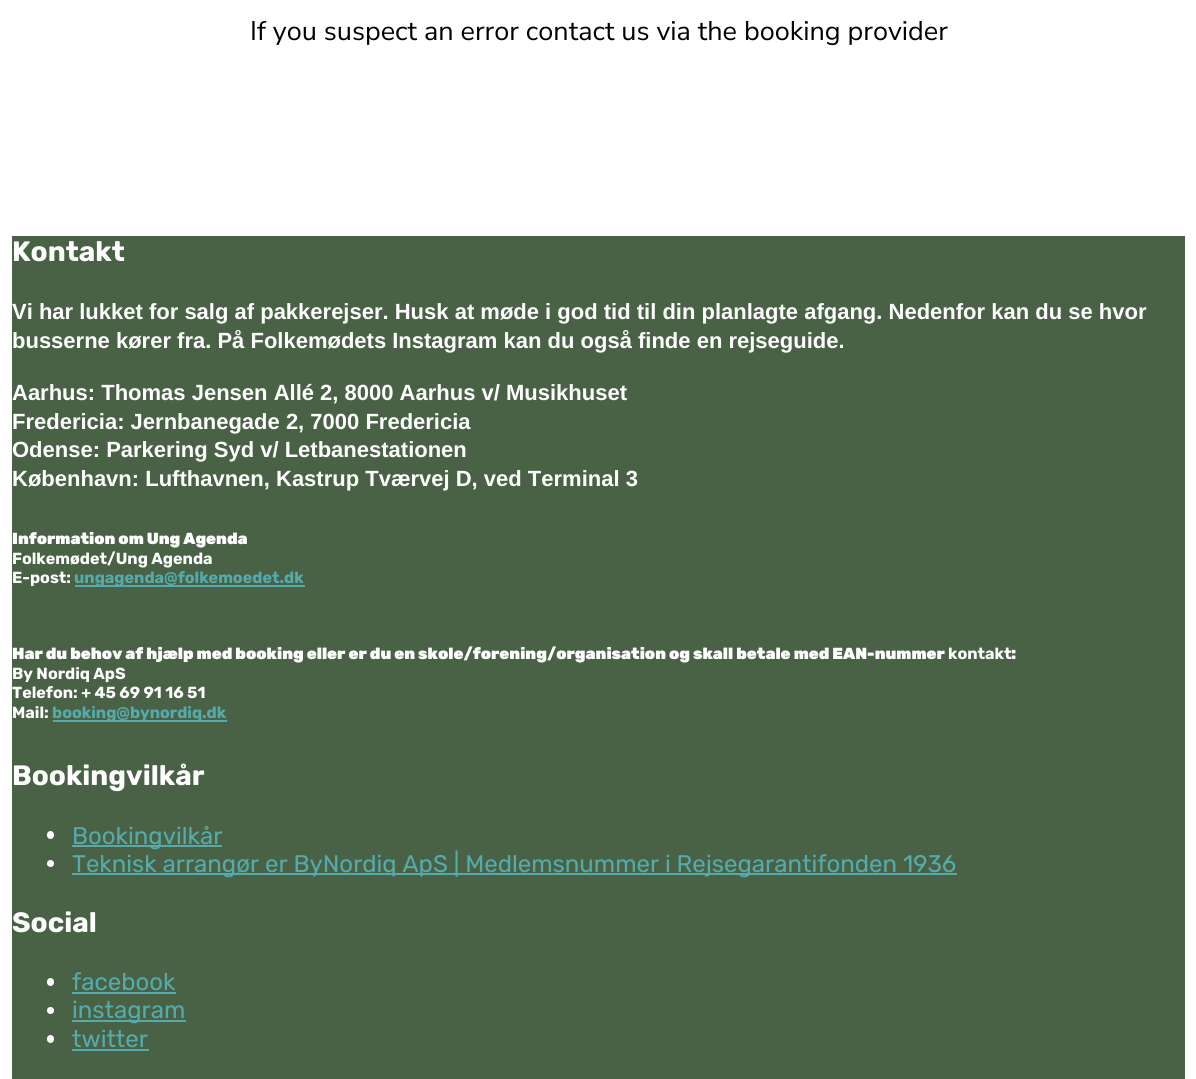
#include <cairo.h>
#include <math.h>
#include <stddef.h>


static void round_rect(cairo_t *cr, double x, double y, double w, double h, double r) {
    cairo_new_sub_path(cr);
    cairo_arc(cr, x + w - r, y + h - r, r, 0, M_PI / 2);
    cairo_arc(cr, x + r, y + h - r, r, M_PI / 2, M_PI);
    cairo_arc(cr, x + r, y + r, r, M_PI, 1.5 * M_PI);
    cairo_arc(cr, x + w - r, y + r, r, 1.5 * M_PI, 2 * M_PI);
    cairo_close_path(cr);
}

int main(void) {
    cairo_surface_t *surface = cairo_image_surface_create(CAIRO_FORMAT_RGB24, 1196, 1079);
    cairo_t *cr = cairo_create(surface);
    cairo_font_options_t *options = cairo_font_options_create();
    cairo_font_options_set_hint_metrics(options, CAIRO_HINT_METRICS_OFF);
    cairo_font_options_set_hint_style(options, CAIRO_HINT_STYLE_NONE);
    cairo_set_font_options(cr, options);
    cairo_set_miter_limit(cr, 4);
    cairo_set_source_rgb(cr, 1, 1, 1);
    cairo_paint(cr);
    cairo_select_font_face(cr, "Nunito Sans", CAIRO_FONT_SLANT_NORMAL, CAIRO_FONT_WEIGHT_NORMAL);
    cairo_set_font_size(cr, 27);
    cairo_set_source_rgb(cr, 0, 0, 0);
    cairo_move_to(cr, 250, 40);
    cairo_show_text(cr, "If you suspect an error contact us via the booking provider");
    cairo_set_source_rgb(cr, 0.286, 0.384, 0.275);
    cairo_rectangle(cr, 12, 236, 1173, 843);
    cairo_fill(cr);
    cairo_select_font_face(cr, "Rubik", CAIRO_FONT_SLANT_NORMAL, CAIRO_FONT_WEIGHT_BOLD);
    cairo_set_font_size(cr, 28);
    cairo_set_source_rgb(cr, 1, 1, 1);
    cairo_move_to(cr, 12, 261);
    cairo_show_text(cr, "Kontakt");
    cairo_select_font_face(cr, "Liberation Sans", CAIRO_FONT_SLANT_NORMAL, CAIRO_FONT_WEIGHT_BOLD);
    cairo_set_font_size(cr, 22);
    cairo_move_to(cr, 12, 319);
    cairo_show_text(cr, "Vi har lukket for salg af pakkerejser. Husk at møde i god tid til din planlagte afgang. Nedenfor kan du se hvor");
    cairo_move_to(cr, 12, 348);
    cairo_show_text(cr, "busserne kører fra. På Folkemødets Instagram kan du også finde en rejseguide.");
    cairo_move_to(cr, 12, 400);
    cairo_show_text(cr, "Aarhus: Thomas Jensen Allé 2, 8000 Aarhus v/ Musikhuset");
    cairo_move_to(cr, 12, 429);
    cairo_show_text(cr, "Fredericia: Jernbanegade 2, 7000 Fredericia");
    cairo_move_to(cr, 12, 457);
    cairo_show_text(cr, "Odense: Parkering Syd v/ Letbanestationen");
    cairo_move_to(cr, 12, 486);
    cairo_show_text(cr, "København: Lufthavnen, Kastrup Tværvej D, ved Terminal 3");
    cairo_select_font_face(cr, "Rubik Black", CAIRO_FONT_SLANT_NORMAL, CAIRO_FONT_WEIGHT_NORMAL);
    cairo_set_font_size(cr, 16.08);
    cairo_move_to(cr, 12, 544);
    cairo_show_text(cr, "Information om Ung Agenda");
    cairo_select_font_face(cr, "Rubik", CAIRO_FONT_SLANT_NORMAL, CAIRO_FONT_WEIGHT_BOLD);
    cairo_move_to(cr, 12, 564);
    cairo_show_text(cr, "Folkemødet/Ung Agenda");
    cairo_move_to(cr, 12, 583);
    cairo_show_text(cr, "E-post:");
    cairo_set_source_rgb(cr, 0.333, 0.671, 0.675);
    cairo_rectangle(cr, 75, 585, 230, 2);
    cairo_fill(cr);
    cairo_move_to(cr, 74, 583);
    cairo_show_text(cr, "ungagenda@folkemoedet.dk");
    cairo_select_font_face(cr, "Rubik Black", CAIRO_FONT_SLANT_NORMAL, CAIRO_FONT_WEIGHT_NORMAL);
    cairo_set_source_rgb(cr, 1, 1, 1);
    cairo_move_to(cr, 12, 659);
    cairo_show_text(cr, "Har du behov af hjælp med booking eller er du en skole/forening/organisation og skall betale med EAN-nummer");
    cairo_select_font_face(cr, "Rubik", CAIRO_FONT_SLANT_NORMAL, CAIRO_FONT_WEIGHT_BOLD);
    cairo_move_to(cr, 948, 659);
    cairo_show_text(cr, "kontakt");
    cairo_select_font_face(cr, "Rubik Black", CAIRO_FONT_SLANT_NORMAL, CAIRO_FONT_WEIGHT_NORMAL);
    cairo_move_to(cr, 1011, 659);
    cairo_show_text(cr, ":");
    cairo_select_font_face(cr, "Rubik", CAIRO_FONT_SLANT_NORMAL, CAIRO_FONT_WEIGHT_BOLD);
    cairo_move_to(cr, 12, 679);
    cairo_show_text(cr, "By Nordiq ApS");
    cairo_move_to(cr, 12, 698);
    cairo_show_text(cr, "Telefon: + 45 69 91 16 51");
    cairo_move_to(cr, 12, 718);
    cairo_show_text(cr, "Mail:");
    cairo_set_source_rgb(cr, 0.333, 0.671, 0.675);
    cairo_rectangle(cr, 53, 720, 174, 2);
    cairo_fill(cr);
    cairo_move_to(cr, 52, 718);
    cairo_show_text(cr, "booking@bynordiq.dk");
    cairo_set_font_size(cr, 28);
    cairo_set_source_rgb(cr, 1, 1, 1);
    cairo_move_to(cr, 12, 785);
    cairo_show_text(cr, "Bookingvilkår");
    round_rect(cr, 47, 831, 7, 8, 3.5);
    cairo_fill(cr);
    cairo_set_source_rgb(cr, 0.333, 0.671, 0.675);
    cairo_rectangle(cr, 72, 845, 150, 2);
    cairo_fill(cr);
    cairo_select_font_face(cr, "Rubik", CAIRO_FONT_SLANT_NORMAL, CAIRO_FONT_WEIGHT_NORMAL);
    cairo_set_font_size(cr, 24);
    cairo_move_to(cr, 72, 844);
    cairo_show_text(cr, "Bookingvilkår");
    cairo_set_source_rgb(cr, 1, 1, 1);
    cairo_new_path(cr);
    cairo_arc(cr, 50.5, 863.5, 3.5, 0, 2 * M_PI);
    cairo_fill(cr);
    cairo_set_source_rgb(cr, 0.333, 0.671, 0.675);
    cairo_rectangle(cr, 72, 873, 885, 2);
    cairo_fill(cr);
    cairo_move_to(cr, 72, 872);
    cairo_show_text(cr, "Teknisk arrangør er ByNordiq ApS | Medlemsnummer i Rejsegarantifonden 1936");
    cairo_select_font_face(cr, "Rubik", CAIRO_FONT_SLANT_NORMAL, CAIRO_FONT_WEIGHT_BOLD);
    cairo_set_font_size(cr, 28);
    cairo_set_source_rgb(cr, 1, 1, 1);
    cairo_move_to(cr, 12, 932);
    cairo_show_text(cr, "Social");
    round_rect(cr, 47, 978, 7, 8, 3.5);
    cairo_fill(cr);
    cairo_select_font_face(cr, "Rubik", CAIRO_FONT_SLANT_NORMAL, CAIRO_FONT_WEIGHT_NORMAL);
    cairo_set_font_size(cr, 24);
    cairo_set_source_rgb(cr, 0.333, 0.671, 0.675);
    cairo_move_to(cr, 72, 990);
    cairo_show_text(cr, "facebook");
    cairo_rectangle(cr, 72, 992, 104, 2);
    cairo_fill(cr);
    cairo_set_source_rgb(cr, 1, 1, 1);
    cairo_arc(cr, 50.5, 1010.5, 3.5, 0, 2 * M_PI);
    cairo_fill(cr);
    cairo_set_source_rgb(cr, 0.333, 0.671, 0.675);
    cairo_rectangle(cr, 72, 1020, 114, 2);
    cairo_fill(cr);
    cairo_move_to(cr, 72, 1018);
    cairo_show_text(cr, "instagram");
    cairo_set_source_rgb(cr, 1, 1, 1);
    round_rect(cr, 47, 1035, 7, 8, 3.5);
    cairo_fill(cr);
    cairo_set_source_rgb(cr, 0.333, 0.671, 0.675);
    cairo_move_to(cr, 72, 1047);
    cairo_show_text(cr, "twitter");
    cairo_rectangle(cr, 72, 1049, 77, 2);
    cairo_fill(cr);
    cairo_surface_write_to_png(surface, "page.png");
    cairo_font_options_destroy(options);
    cairo_destroy(cr);
    cairo_surface_destroy(surface);
    return 0;
}
